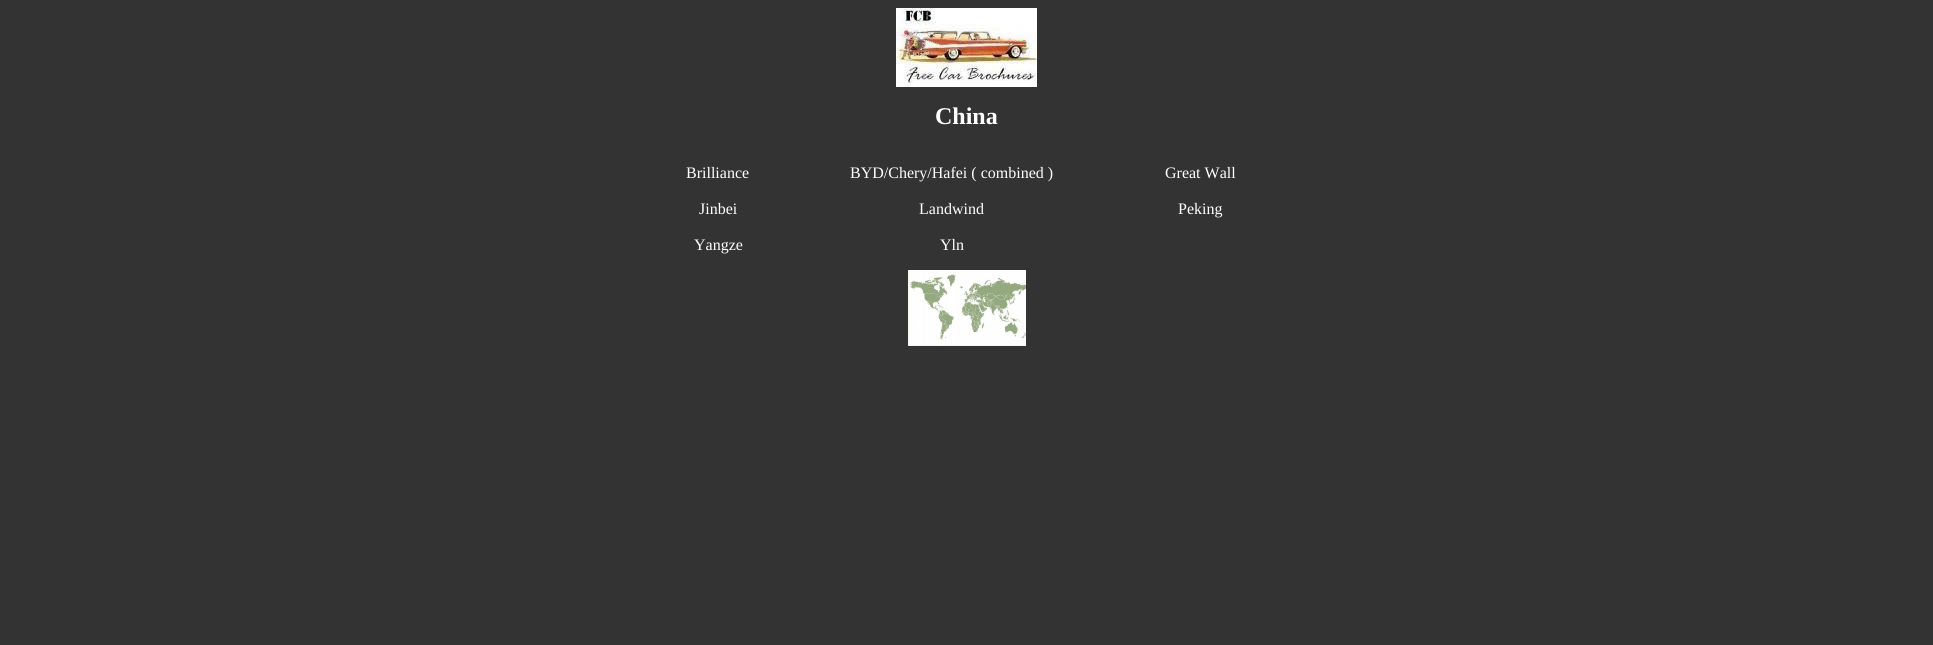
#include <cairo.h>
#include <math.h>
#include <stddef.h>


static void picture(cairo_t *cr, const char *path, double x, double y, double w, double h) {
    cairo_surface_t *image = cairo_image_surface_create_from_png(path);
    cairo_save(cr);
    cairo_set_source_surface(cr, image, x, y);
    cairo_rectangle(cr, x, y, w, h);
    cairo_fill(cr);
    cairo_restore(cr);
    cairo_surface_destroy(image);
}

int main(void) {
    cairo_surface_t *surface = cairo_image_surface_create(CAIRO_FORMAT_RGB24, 1933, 645);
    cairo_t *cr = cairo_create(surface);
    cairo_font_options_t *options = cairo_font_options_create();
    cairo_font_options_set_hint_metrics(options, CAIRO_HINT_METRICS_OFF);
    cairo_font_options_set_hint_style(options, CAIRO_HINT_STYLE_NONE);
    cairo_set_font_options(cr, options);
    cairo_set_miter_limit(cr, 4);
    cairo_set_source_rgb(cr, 0.2, 0.2, 0.2);
    cairo_paint(cr);
    picture(cr, "img1.png", 896, 8, 141, 79);
    cairo_select_font_face(cr, "Liberation Serif", CAIRO_FONT_SLANT_NORMAL, CAIRO_FONT_WEIGHT_BOLD);
    cairo_set_font_size(cr, 24);
    cairo_set_source_rgb(cr, 1, 1, 1);
    cairo_move_to(cr, 935, 124);
    cairo_show_text(cr, "China");
    cairo_select_font_face(cr, "Liberation Serif", CAIRO_FONT_SLANT_NORMAL, CAIRO_FONT_WEIGHT_NORMAL);
    cairo_set_font_size(cr, 16);
    cairo_move_to(cr, 686, 178);
    cairo_show_text(cr, "Brilliance");
    cairo_move_to(cr, 850, 178);
    cairo_show_text(cr, "BYD/Chery/Hafei ( combined )");
    cairo_move_to(cr, 1165, 178);
    cairo_show_text(cr, "Great Wall");
    cairo_move_to(cr, 699, 214);
    cairo_show_text(cr, "Jinbei");
    cairo_move_to(cr, 919, 214);
    cairo_show_text(cr, "Landwind");
    cairo_move_to(cr, 1178, 214);
    cairo_show_text(cr, "Peking");
    cairo_move_to(cr, 694, 250);
    cairo_show_text(cr, "Yangze");
    cairo_move_to(cr, 940, 250);
    cairo_show_text(cr, "Yln");
    picture(cr, "img2.png", 908, 270, 118, 76);
    cairo_surface_write_to_png(surface, "page.png");
    cairo_font_options_destroy(options);
    cairo_destroy(cr);
    cairo_surface_destroy(surface);
    return 0;
}
